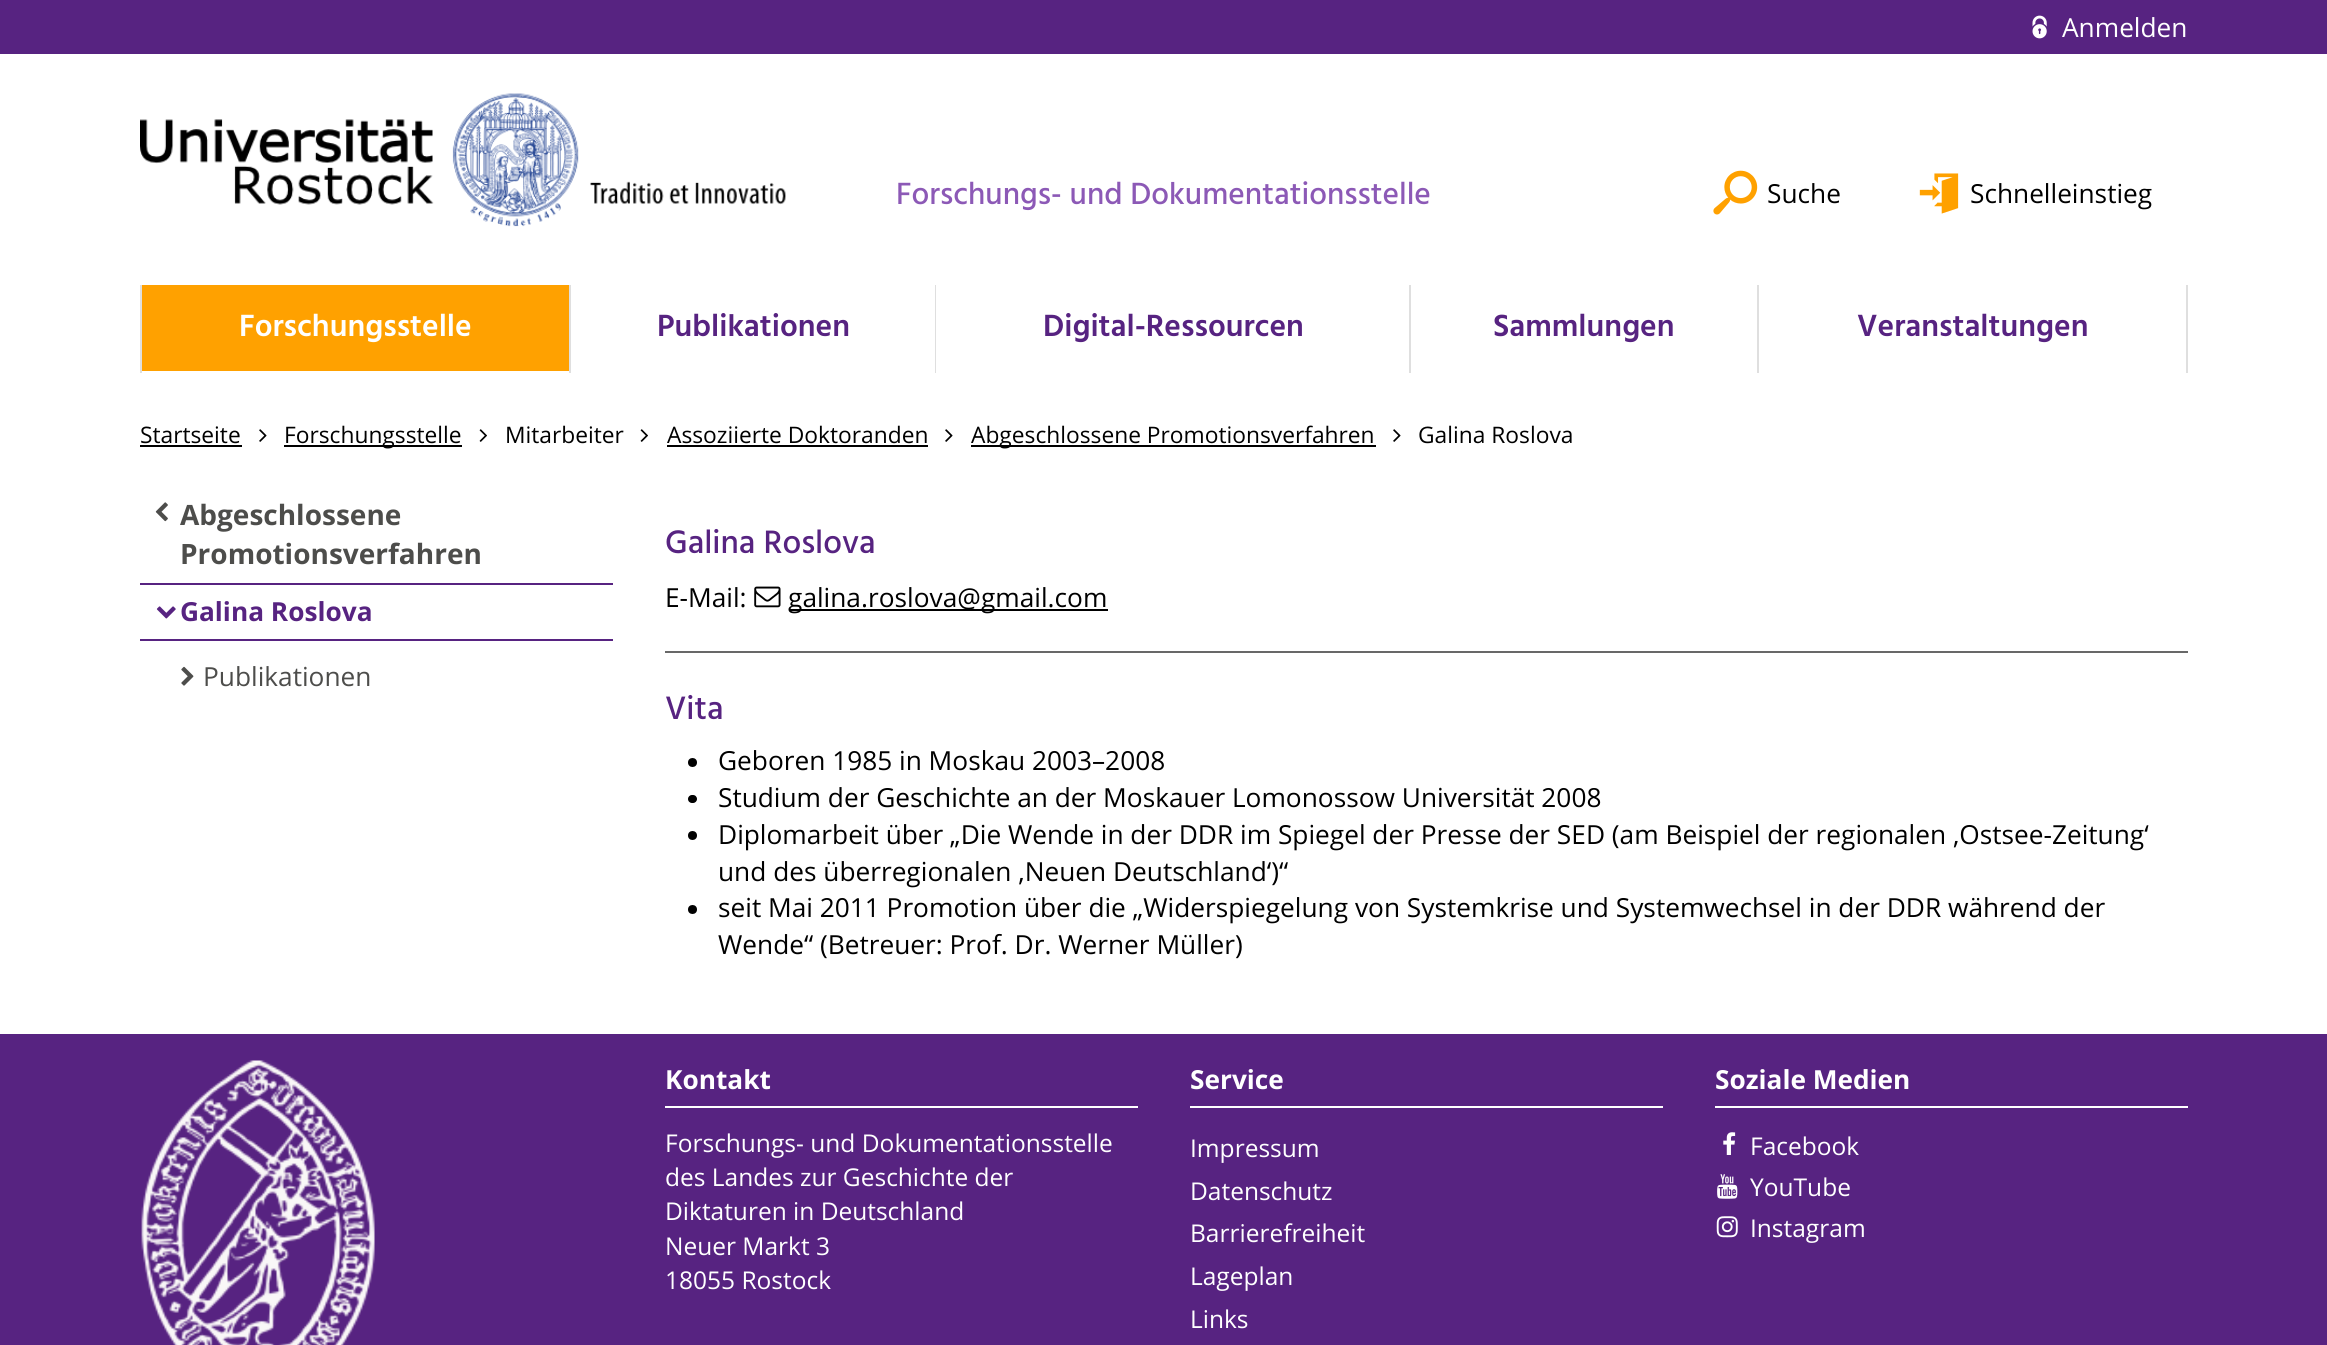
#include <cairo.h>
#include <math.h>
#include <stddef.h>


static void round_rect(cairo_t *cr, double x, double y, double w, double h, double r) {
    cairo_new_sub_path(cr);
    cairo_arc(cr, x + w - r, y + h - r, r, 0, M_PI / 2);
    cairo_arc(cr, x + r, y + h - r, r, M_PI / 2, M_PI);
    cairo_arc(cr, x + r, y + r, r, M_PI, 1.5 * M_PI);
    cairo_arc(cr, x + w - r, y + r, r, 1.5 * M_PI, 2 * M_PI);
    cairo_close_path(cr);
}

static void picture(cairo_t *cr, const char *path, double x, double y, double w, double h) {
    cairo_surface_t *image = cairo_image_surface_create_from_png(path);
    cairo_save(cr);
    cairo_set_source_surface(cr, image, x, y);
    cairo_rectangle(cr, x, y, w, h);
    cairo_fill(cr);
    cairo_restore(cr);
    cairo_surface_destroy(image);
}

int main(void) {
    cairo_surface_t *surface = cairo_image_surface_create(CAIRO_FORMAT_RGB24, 2327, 1345);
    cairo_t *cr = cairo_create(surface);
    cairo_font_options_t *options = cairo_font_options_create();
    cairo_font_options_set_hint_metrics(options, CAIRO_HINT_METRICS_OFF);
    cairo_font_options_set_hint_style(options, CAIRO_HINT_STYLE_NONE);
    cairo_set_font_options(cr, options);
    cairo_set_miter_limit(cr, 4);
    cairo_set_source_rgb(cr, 1, 1, 1);
    cairo_paint(cr);
    cairo_set_source_rgb(cr, 0.341, 0.137, 0.506);
    cairo_rectangle(cr, 0, 0, 2327, 54);
    cairo_fill(cr);
    picture(cr, "img1.png", 2032, 15, 15, 24);
    cairo_select_font_face(cr, "Open Sans", CAIRO_FONT_SLANT_NORMAL, CAIRO_FONT_WEIGHT_NORMAL);
    cairo_set_font_size(cr, 26.25);
    cairo_set_source_rgb(cr, 1, 1, 1);
    cairo_move_to(cr, 2062, 37);
    cairo_show_text(cr, "Anmelden");
    picture(cr, "img2.png", 140, 93, 646, 134);
    cairo_select_font_face(cr, "Hind Medium", CAIRO_FONT_SLANT_NORMAL, CAIRO_FONT_WEIGHT_NORMAL);
    cairo_set_font_size(cr, 31.5);
    cairo_set_source_rgb(cr, 0.549, 0.349, 0.714);
    cairo_move_to(cr, 896, 204);
    cairo_show_text(cr, "Forschungs- und Dokumentationsstelle");
    picture(cr, "img3.png", 1713, 170, 45, 45);
    cairo_select_font_face(cr, "Open Sans", CAIRO_FONT_SLANT_NORMAL, CAIRO_FONT_WEIGHT_NORMAL);
    cairo_set_font_size(cr, 26.25);
    cairo_set_source_rgb(cr, 0, 0, 0);
    cairo_move_to(cr, 1767, 203);
    cairo_show_text(cr, "Suche");
    picture(cr, "img4.png", 1919, 173, 40, 41);
    cairo_move_to(cr, 1970, 203);
    cairo_show_text(cr, "Schnelleinstieg");
    cairo_set_source_rgb(cr, 0.875, 0.875, 0.875);
    cairo_rectangle(cr, 140, 285, 2, 88);
    cairo_fill(cr);
    cairo_set_source_rgb(cr, 1, 0.631, 0);
    cairo_rectangle(cr, 142, 285, 427, 86);
    cairo_fill(cr);
    cairo_select_font_face(cr, "Hind SemiBold", CAIRO_FONT_SLANT_NORMAL, CAIRO_FONT_WEIGHT_NORMAL);
    cairo_set_font_size(cr, 31.5);
    cairo_set_source_rgb(cr, 1, 1, 1);
    cairo_move_to(cr, 239, 336);
    cairo_show_text(cr, "Forschungsstelle");
    cairo_set_source_rgb(cr, 0.875, 0.875, 0.875);
    cairo_rectangle(cr, 569, 285, 2, 88);
    cairo_fill(cr);
    cairo_set_source_rgb(cr, 0.341, 0.137, 0.506);
    cairo_move_to(cr, 657, 336);
    cairo_show_text(cr, "Publikationen");
    cairo_set_source_rgb(cr, 0.875, 0.875, 0.875);
    cairo_rectangle(cr, 935, 285, 1, 88);
    cairo_fill(cr);
    cairo_set_source_rgb(cr, 0.341, 0.137, 0.506);
    cairo_move_to(cr, 1043, 336);
    cairo_show_text(cr, "Digital-Ressourcen");
    cairo_set_source_rgb(cr, 0.875, 0.875, 0.875);
    cairo_rectangle(cr, 1409, 285, 2, 88);
    cairo_fill(cr);
    cairo_set_source_rgb(cr, 0.341, 0.137, 0.506);
    cairo_move_to(cr, 1493, 336);
    cairo_show_text(cr, "Sammlungen");
    cairo_set_source_rgb(cr, 0.875, 0.875, 0.875);
    cairo_rectangle(cr, 2186, 285, 2, 88);
    cairo_fill(cr);
    cairo_rectangle(cr, 1757, 285, 2, 88);
    cairo_fill(cr);
    cairo_set_source_rgb(cr, 0.341, 0.137, 0.506);
    cairo_move_to(cr, 1857, 336);
    cairo_show_text(cr, "Veranstaltungen");
    cairo_select_font_face(cr, "Open Sans", CAIRO_FONT_SLANT_NORMAL, CAIRO_FONT_WEIGHT_NORMAL);
    cairo_set_font_size(cr, 22.75);
    cairo_set_source_rgb(cr, 0, 0, 0);
    cairo_move_to(cr, 140, 443);
    cairo_show_text(cr, "Startseite");
    cairo_rectangle(cr, 140, 445, 102, 2);
    cairo_fill(cr);
    picture(cr, "img5.png", 259, 429, 8, 13);
    cairo_rectangle(cr, 284, 445, 178, 2);
    cairo_fill(cr);
    cairo_move_to(cr, 284, 443);
    cairo_show_text(cr, "Forschungsstelle");
    picture(cr, "img6.png", 479, 429, 8, 13);
    cairo_move_to(cr, 505, 443);
    cairo_show_text(cr, "Mitarbeiter");
    picture(cr, "img6.png", 640, 429, 8, 13);
    cairo_move_to(cr, 667, 443);
    cairo_show_text(cr, "Assoziierte Doktoranden");
    cairo_rectangle(cr, 667, 445, 261, 2);
    cairo_fill(cr);
    picture(cr, "img5.png", 945, 429, 8, 13);
    cairo_rectangle(cr, 971, 445, 405, 2);
    cairo_fill(cr);
    cairo_move_to(cr, 971, 443);
    cairo_show_text(cr, "Abgeschlossene Promotionsverfahren");
    picture(cr, "img5.png", 1393, 429, 8, 13);
    cairo_move_to(cr, 1418, 443);
    cairo_show_text(cr, "Galina Roslova");
    picture(cr, "img7.png", 155, 502, 13, 20);
    cairo_select_font_face(cr, "Open Sans", CAIRO_FONT_SLANT_NORMAL, CAIRO_FONT_WEIGHT_BOLD);
    cairo_set_font_size(cr, 28);
    cairo_set_source_rgb(cr, 0.302, 0.302, 0.294);
    cairo_move_to(cr, 180, 525);
    cairo_show_text(cr, "Abgeschlossene");
    cairo_move_to(cr, 180, 564);
    cairo_show_text(cr, "Promotionsverfahren");
    cairo_set_source_rgb(cr, 0.341, 0.137, 0.506);
    cairo_rectangle(cr, 140, 583, 473, 2);
    cairo_fill(cr);
    cairo_rectangle(cr, 140, 639, 473, 2);
    cairo_fill(cr);
    picture(cr, "img8.png", 156, 606, 20, 13);
    cairo_set_font_size(cr, 26.25);
    cairo_move_to(cr, 180, 621);
    cairo_show_text(cr, "Galina Roslova");
    picture(cr, "img9.png", 181, 666, 13, 20);
    cairo_select_font_face(cr, "Open Sans", CAIRO_FONT_SLANT_NORMAL, CAIRO_FONT_WEIGHT_NORMAL);
    cairo_set_source_rgb(cr, 0.302, 0.302, 0.294);
    cairo_move_to(cr, 203, 686);
    cairo_show_text(cr, "Publikationen");
    cairo_select_font_face(cr, "Hind Medium", CAIRO_FONT_SLANT_NORMAL, CAIRO_FONT_WEIGHT_NORMAL);
    cairo_set_font_size(cr, 33.25);
    cairo_set_source_rgb(cr, 0.341, 0.137, 0.506);
    cairo_move_to(cr, 665, 553);
    cairo_show_text(cr, "Galina Roslova");
    cairo_select_font_face(cr, "Open Sans", CAIRO_FONT_SLANT_NORMAL, CAIRO_FONT_WEIGHT_NORMAL);
    cairo_set_font_size(cr, 26.25);
    cairo_set_source_rgb(cr, 0, 0, 0);
    cairo_move_to(cr, 665, 607);
    cairo_show_text(cr, "E-Mail:");
    picture(cr, "img10.png", 754, 586, 27, 22);
    cairo_rectangle(cr, 789, 609, 319, 2);
    cairo_fill(cr);
    cairo_move_to(cr, 788, 607);
    cairo_show_text(cr, "galina.roslova@gmail.com");
    cairo_set_source_rgb(cr, 0.408, 0.408, 0.408);
    cairo_rectangle(cr, 665, 651, 1523, 2);
    cairo_fill(cr);
    cairo_select_font_face(cr, "Hind Medium", CAIRO_FONT_SLANT_NORMAL, CAIRO_FONT_WEIGHT_NORMAL);
    cairo_set_font_size(cr, 33.25);
    cairo_set_source_rgb(cr, 0.341, 0.137, 0.506);
    cairo_move_to(cr, 665, 719);
    cairo_show_text(cr, "Vita");
    cairo_set_source_rgb(cr, 0, 0, 0);
    cairo_new_path(cr);
    cairo_arc(cr, 692.5, 762.5, 4.5, 0, 2 * M_PI);
    cairo_fill(cr);
    cairo_select_font_face(cr, "Open Sans", CAIRO_FONT_SLANT_NORMAL, CAIRO_FONT_WEIGHT_NORMAL);
    cairo_set_font_size(cr, 26.25);
    cairo_move_to(cr, 718, 770);
    cairo_show_text(cr, "Geboren 1985 in Moskau 2003–2008");
    round_rect(cr, 688, 795, 9, 8, 4);
    cairo_fill(cr);
    cairo_move_to(cr, 718, 807);
    cairo_show_text(cr, "Studium der Geschichte an der Moskauer Lomonossow Universität 2008");
    cairo_new_path(cr);
    cairo_arc(cr, 692.5, 835.5, 4.5, 0, 2 * M_PI);
    cairo_fill(cr);
    cairo_move_to(cr, 718, 844);
    cairo_show_text(cr, "Diplomarbeit über „Die Wende in der DDR im Spiegel der Presse der SED (am Beispiel der regionalen ‚Ostsee-Zeitung‘");
    cairo_move_to(cr, 718, 881);
    cairo_show_text(cr, "und des überregionalen ‚Neuen Deutschland‘)“");
    cairo_new_path(cr);
    cairo_arc(cr, 692.5, 909.5, 4.5, 0, 2 * M_PI);
    cairo_fill(cr);
    cairo_move_to(cr, 718, 917);
    cairo_show_text(cr, "seit Mai 2011 Promotion über die „Widerspiegelung von Systemkrise und Systemwechsel in der DDR während der");
    cairo_move_to(cr, 718, 954);
    cairo_show_text(cr, "Wende“ (Betreuer: Prof. Dr. Werner Müller)");
    cairo_set_source_rgb(cr, 0.341, 0.137, 0.506);
    cairo_rectangle(cr, 0, 1034, 2327, 311);
    cairo_fill(cr);
    picture(cr, "img11.png", 141, 1060, 234, 285);
    cairo_set_source_rgb(cr, 1, 1, 1);
    cairo_rectangle(cr, 665, 1106, 473, 2);
    cairo_fill(cr);
    cairo_select_font_face(cr, "Open Sans", CAIRO_FONT_SLANT_NORMAL, CAIRO_FONT_WEIGHT_BOLD);
    cairo_move_to(cr, 665, 1089);
    cairo_show_text(cr, "Kontakt");
    cairo_select_font_face(cr, "Open Sans", CAIRO_FONT_SLANT_NORMAL, CAIRO_FONT_WEIGHT_NORMAL);
    cairo_set_font_size(cr, 24.5);
    cairo_move_to(cr, 665, 1152);
    cairo_show_text(cr, "Forschungs- und Dokumentationsstelle");
    cairo_move_to(cr, 665, 1186);
    cairo_show_text(cr, "des Landes zur Geschichte der");
    cairo_move_to(cr, 665, 1220);
    cairo_show_text(cr, "Diktaturen in Deutschland");
    cairo_move_to(cr, 665, 1255);
    cairo_show_text(cr, "Neuer Markt 3");
    cairo_move_to(cr, 665, 1289);
    cairo_show_text(cr, "18055 Rostock");
    cairo_rectangle(cr, 1190, 1106, 473, 2);
    cairo_fill(cr);
    cairo_select_font_face(cr, "Open Sans", CAIRO_FONT_SLANT_NORMAL, CAIRO_FONT_WEIGHT_BOLD);
    cairo_set_font_size(cr, 26.25);
    cairo_move_to(cr, 1190, 1089);
    cairo_show_text(cr, "Service");
    cairo_select_font_face(cr, "Open Sans", CAIRO_FONT_SLANT_NORMAL, CAIRO_FONT_WEIGHT_NORMAL);
    cairo_set_font_size(cr, 24.5);
    cairo_move_to(cr, 1190, 1157);
    cairo_show_text(cr, "Impressum");
    cairo_move_to(cr, 1190, 1200);
    cairo_show_text(cr, "Datenschutz");
    cairo_move_to(cr, 1190, 1242);
    cairo_show_text(cr, "Barrierefreiheit");
    cairo_move_to(cr, 1190, 1285);
    cairo_show_text(cr, "Lageplan");
    cairo_move_to(cr, 1190, 1328);
    cairo_show_text(cr, "Links");
    cairo_rectangle(cr, 1715, 1106, 473, 2);
    cairo_fill(cr);
    cairo_select_font_face(cr, "Open Sans", CAIRO_FONT_SLANT_NORMAL, CAIRO_FONT_WEIGHT_BOLD);
    cairo_set_font_size(cr, 26.25);
    cairo_move_to(cr, 1715, 1089);
    cairo_show_text(cr, "Soziale Medien");
    picture(cr, "img12.png", 1723, 1132, 13, 23);
    cairo_select_font_face(cr, "Open Sans", CAIRO_FONT_SLANT_NORMAL, CAIRO_FONT_WEIGHT_NORMAL);
    cairo_set_font_size(cr, 24.5);
    cairo_move_to(cr, 1750, 1155);
    cairo_show_text(cr, "Facebook");
    picture(cr, "img13.png", 1717, 1174, 21, 25);
    cairo_move_to(cr, 1750, 1196);
    cairo_show_text(cr, "YouTube");
    picture(cr, "img14.png", 1716, 1216, 22, 22);
    cairo_move_to(cr, 1750, 1237);
    cairo_show_text(cr, "Instagram");
    cairo_surface_write_to_png(surface, "page.png");
    cairo_font_options_destroy(options);
    cairo_destroy(cr);
    cairo_surface_destroy(surface);
    return 0;
}
